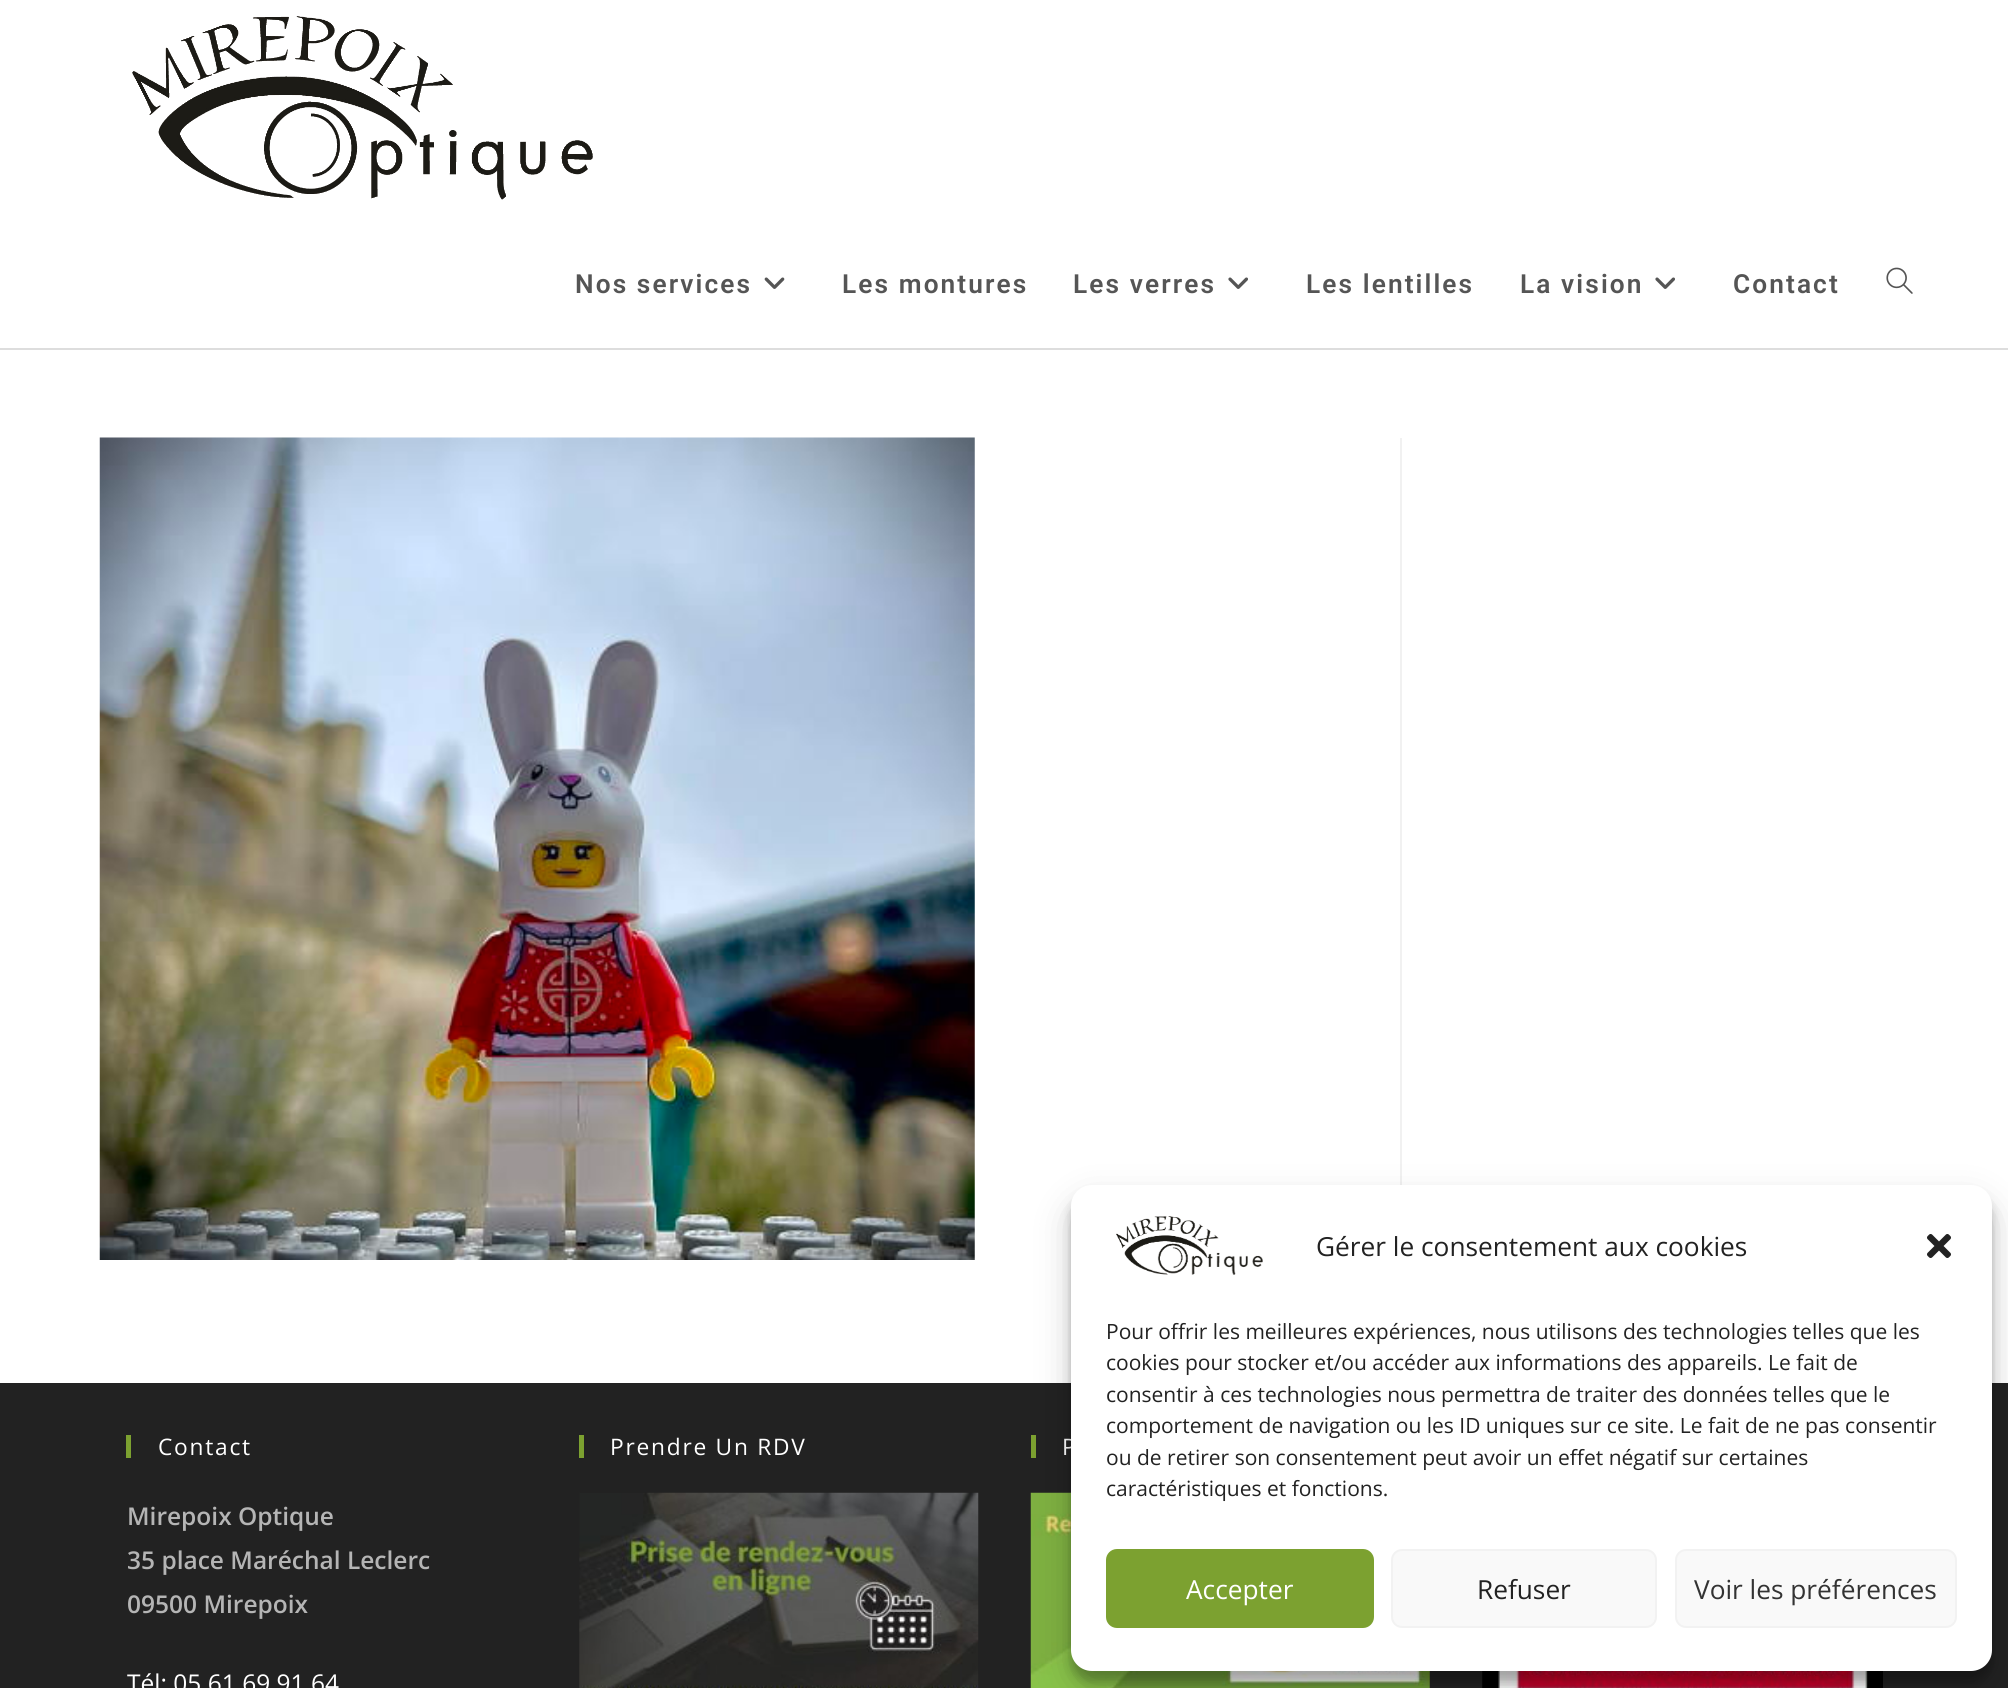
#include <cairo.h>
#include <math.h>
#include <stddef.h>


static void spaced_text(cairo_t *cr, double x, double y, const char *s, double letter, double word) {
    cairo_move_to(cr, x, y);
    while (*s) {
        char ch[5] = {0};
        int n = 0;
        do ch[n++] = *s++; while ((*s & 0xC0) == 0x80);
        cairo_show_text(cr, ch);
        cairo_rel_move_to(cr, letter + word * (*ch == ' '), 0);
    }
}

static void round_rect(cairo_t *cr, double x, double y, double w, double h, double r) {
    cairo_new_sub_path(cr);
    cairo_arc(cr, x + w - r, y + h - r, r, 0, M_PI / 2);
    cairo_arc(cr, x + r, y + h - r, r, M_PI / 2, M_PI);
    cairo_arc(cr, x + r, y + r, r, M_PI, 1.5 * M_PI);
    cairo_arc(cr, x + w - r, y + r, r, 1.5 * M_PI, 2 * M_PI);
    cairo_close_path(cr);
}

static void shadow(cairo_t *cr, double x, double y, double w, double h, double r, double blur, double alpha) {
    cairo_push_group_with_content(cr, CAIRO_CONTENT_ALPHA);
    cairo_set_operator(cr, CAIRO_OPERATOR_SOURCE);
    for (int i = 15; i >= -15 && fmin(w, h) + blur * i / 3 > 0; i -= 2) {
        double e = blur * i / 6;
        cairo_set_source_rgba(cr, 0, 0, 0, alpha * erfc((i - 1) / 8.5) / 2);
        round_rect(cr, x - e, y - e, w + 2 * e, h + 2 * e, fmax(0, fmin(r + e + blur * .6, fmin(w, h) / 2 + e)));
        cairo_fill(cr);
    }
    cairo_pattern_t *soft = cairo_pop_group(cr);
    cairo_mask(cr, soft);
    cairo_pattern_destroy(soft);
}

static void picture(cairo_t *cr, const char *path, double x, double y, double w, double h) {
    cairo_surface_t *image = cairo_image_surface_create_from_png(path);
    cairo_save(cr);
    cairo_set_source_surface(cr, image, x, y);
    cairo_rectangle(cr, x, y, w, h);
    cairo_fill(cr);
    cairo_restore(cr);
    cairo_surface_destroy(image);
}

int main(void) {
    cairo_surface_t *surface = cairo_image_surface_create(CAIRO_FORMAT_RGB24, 2008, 1688);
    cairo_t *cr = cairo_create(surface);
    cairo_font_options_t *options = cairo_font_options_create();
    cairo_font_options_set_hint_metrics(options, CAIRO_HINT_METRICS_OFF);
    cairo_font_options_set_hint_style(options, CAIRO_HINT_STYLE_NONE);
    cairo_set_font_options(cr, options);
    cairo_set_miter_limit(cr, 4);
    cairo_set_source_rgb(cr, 1, 1, 1);
    cairo_paint(cr);
    cairo_set_source_rgb(cr, 0.867, 0.867, 0.867);
    cairo_rectangle(cr, 0, 348, 2008, 2);
    cairo_fill(cr);
    picture(cr, "img1.png", 132, 16, 461, 184);
    cairo_select_font_face(cr, "Roboto SemiBold", CAIRO_FONT_SLANT_NORMAL, CAIRO_FONT_WEIGHT_NORMAL);
    cairo_set_font_size(cr, 26.25);
    cairo_set_source_rgb(cr, 0.333, 0.333, 0.333);
    spaced_text(cr, 575, 293, "Nos services", 2.1, 0);
    picture(cr, "img2.png", 764, 277, 21, 12);
    spaced_text(cr, 842, 293, "Les montures", 2.1, 0);
    spaced_text(cr, 1073, 293, "Les verres", 2.1, 0);
    picture(cr, "img3.png", 1228, 277, 20, 12);
    spaced_text(cr, 1306, 293, "Les lentilles", 2.1, 0);
    spaced_text(cr, 1520, 293, "La vision", 2.1, 0);
    picture(cr, "img3.png", 1655, 277, 20, 12);
    spaced_text(cr, 1733, 293, "Contact", 2.1, 0);
    picture(cr, "img4.png", 1886, 267, 27, 27);
    cairo_set_source_rgb(cr, 0.945, 0.945, 0.945);
    cairo_rectangle(cr, 1400, 438, 2, 747);
    cairo_fill(cr);
    picture(cr, "img5.png", 99, 437, 876, 823);
    cairo_set_source_rgb(cr, 0.133, 0.133, 0.133);
    cairo_rectangle(cr, 0, 1383, 2008, 305);
    cairo_fill(cr);
    cairo_set_source_rgb(cr, 0.486, 0.631, 0.188);
    cairo_rectangle(cr, 126, 1435, 5, 23);
    cairo_fill(cr);
    cairo_select_font_face(cr, "Open Sans", CAIRO_FONT_SLANT_NORMAL, CAIRO_FONT_WEIGHT_NORMAL);
    cairo_set_font_size(cr, 22.75);
    cairo_set_source_rgb(cr, 1, 1, 1);
    spaced_text(cr, 158, 1455, "Contact", 1.75, 0);
    cairo_select_font_face(cr, "Open Sans SemiBold", CAIRO_FONT_SLANT_NORMAL, CAIRO_FONT_WEIGHT_NORMAL);
    cairo_set_font_size(cr, 24.5);
    cairo_set_source_rgb(cr, 0.71, 0.71, 0.71);
    cairo_move_to(cr, 127, 1525);
    cairo_show_text(cr, "Mirepoix Optique");
    cairo_move_to(cr, 127, 1569);
    cairo_show_text(cr, "35 place Maréchal Leclerc");
    cairo_move_to(cr, 127, 1613);
    cairo_show_text(cr, "09500 Mirepoix");
    cairo_select_font_face(cr, "Open Sans", CAIRO_FONT_SLANT_NORMAL, CAIRO_FONT_WEIGHT_NORMAL);
    cairo_set_source_rgb(cr, 1, 1, 1);
    cairo_move_to(cr, 127, 1692);
    cairo_show_text(cr, "Tél: 05.61.69.91.64");
    cairo_set_source_rgb(cr, 0.486, 0.631, 0.188);
    cairo_rectangle(cr, 579, 1435, 5, 23);
    cairo_fill(cr);
    cairo_set_font_size(cr, 22.75);
    cairo_set_source_rgb(cr, 1, 1, 1);
    spaced_text(cr, 610, 1455, "Prendre Un RDV", 1.75, 0);
    picture(cr, "img6.png", 579, 1492, 400, 196);
    cairo_set_source_rgb(cr, 0.486, 0.631, 0.188);
    cairo_rectangle(cr, 1031, 1435, 5, 23);
    cairo_fill(cr);
    cairo_set_source_rgb(cr, 1, 1, 1);
    spaced_text(cr, 1062, 1455, "P", 1.75, 0);
    picture(cr, "img7.png", 1030, 1492, 400, 196);
    picture(cr, "img8.png", 1482, 1671, 401, 17);
    cairo_set_source_rgb(cr, 0, 0, 0);
    shadow(cr, 1071, 1195, 921, 487, 21, 5, 0.23);
    shadow(cr, 1071, 1202, 921, 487, 21, 17.5, 0.19);
    cairo_set_source_rgb(cr, 1, 1, 1);
    round_rect(cr, 1071, 1185, 921, 486, 21);
    cairo_fill(cr);
    picture(cr, "img9.png", 1116, 1216, 147, 59);
    cairo_set_font_size(cr, 26.25);
    cairo_set_source_rgb(cr, 0.133, 0.133, 0.133);
    cairo_move_to(cr, 1316, 1256);
    cairo_show_text(cr, "Gérer le consentement aux cookies");
    picture(cr, "img10.png", 1927, 1234, 24, 24);
    cairo_set_font_size(cr, 21);
    cairo_move_to(cr, 1106, 1339);
    cairo_show_text(cr, "Pour offrir les meilleures expériences, nous utilisons des technologies telles que les");
    cairo_move_to(cr, 1106, 1370);
    cairo_show_text(cr, "cookies pour stocker et/ou accéder aux informations des appareils. Le fait de");
    cairo_move_to(cr, 1106, 1402);
    cairo_show_text(cr, "consentir à ces technologies nous permettra de traiter des données telles que le");
    cairo_move_to(cr, 1106, 1433);
    cairo_show_text(cr, "comportement de navigation ou les ID uniques sur ce site. Le fait de ne pas consentir");
    cairo_move_to(cr, 1106, 1465);
    cairo_show_text(cr, "ou de retirer son consentement peut avoir un effet négatif sur certaines");
    cairo_move_to(cr, 1106, 1496);
    cairo_show_text(cr, "caractéristiques et fonctions.");
    cairo_set_source_rgb(cr, 0.486, 0.631, 0.188);
    round_rect(cr, 1107, 1550, 266, 77, 10);
    cairo_fill_preserve(cr);
    cairo_stroke(cr);
    cairo_set_font_size(cr, 26.25);
    cairo_set_source_rgb(cr, 1, 1, 1);
    cairo_move_to(cr, 1186, 1599);
    cairo_show_text(cr, "Accepter");
    cairo_set_source_rgb(cr, 0.976, 0.976, 0.976);
    round_rect(cr, 1392, 1550, 264, 77, 10);
    cairo_fill_preserve(cr);
    cairo_set_source_rgb(cr, 0.949, 0.949, 0.949);
    cairo_stroke(cr);
    cairo_set_source_rgb(cr, 0.133, 0.133, 0.133);
    cairo_move_to(cr, 1477, 1599);
    cairo_show_text(cr, "Refuser");
    cairo_set_source_rgb(cr, 0.976, 0.976, 0.976);
    round_rect(cr, 1676, 1550, 280, 77, 10);
    cairo_fill_preserve(cr);
    cairo_set_source_rgb(cr, 0.949, 0.949, 0.949);
    cairo_stroke(cr);
    cairo_set_source_rgb(cr, 0.2, 0.2, 0.2);
    cairo_move_to(cr, 1694, 1599);
    cairo_show_text(cr, "Voir les préférences");
    cairo_surface_write_to_png(surface, "page.png");
    cairo_font_options_destroy(options);
    cairo_destroy(cr);
    cairo_surface_destroy(surface);
    return 0;
}
